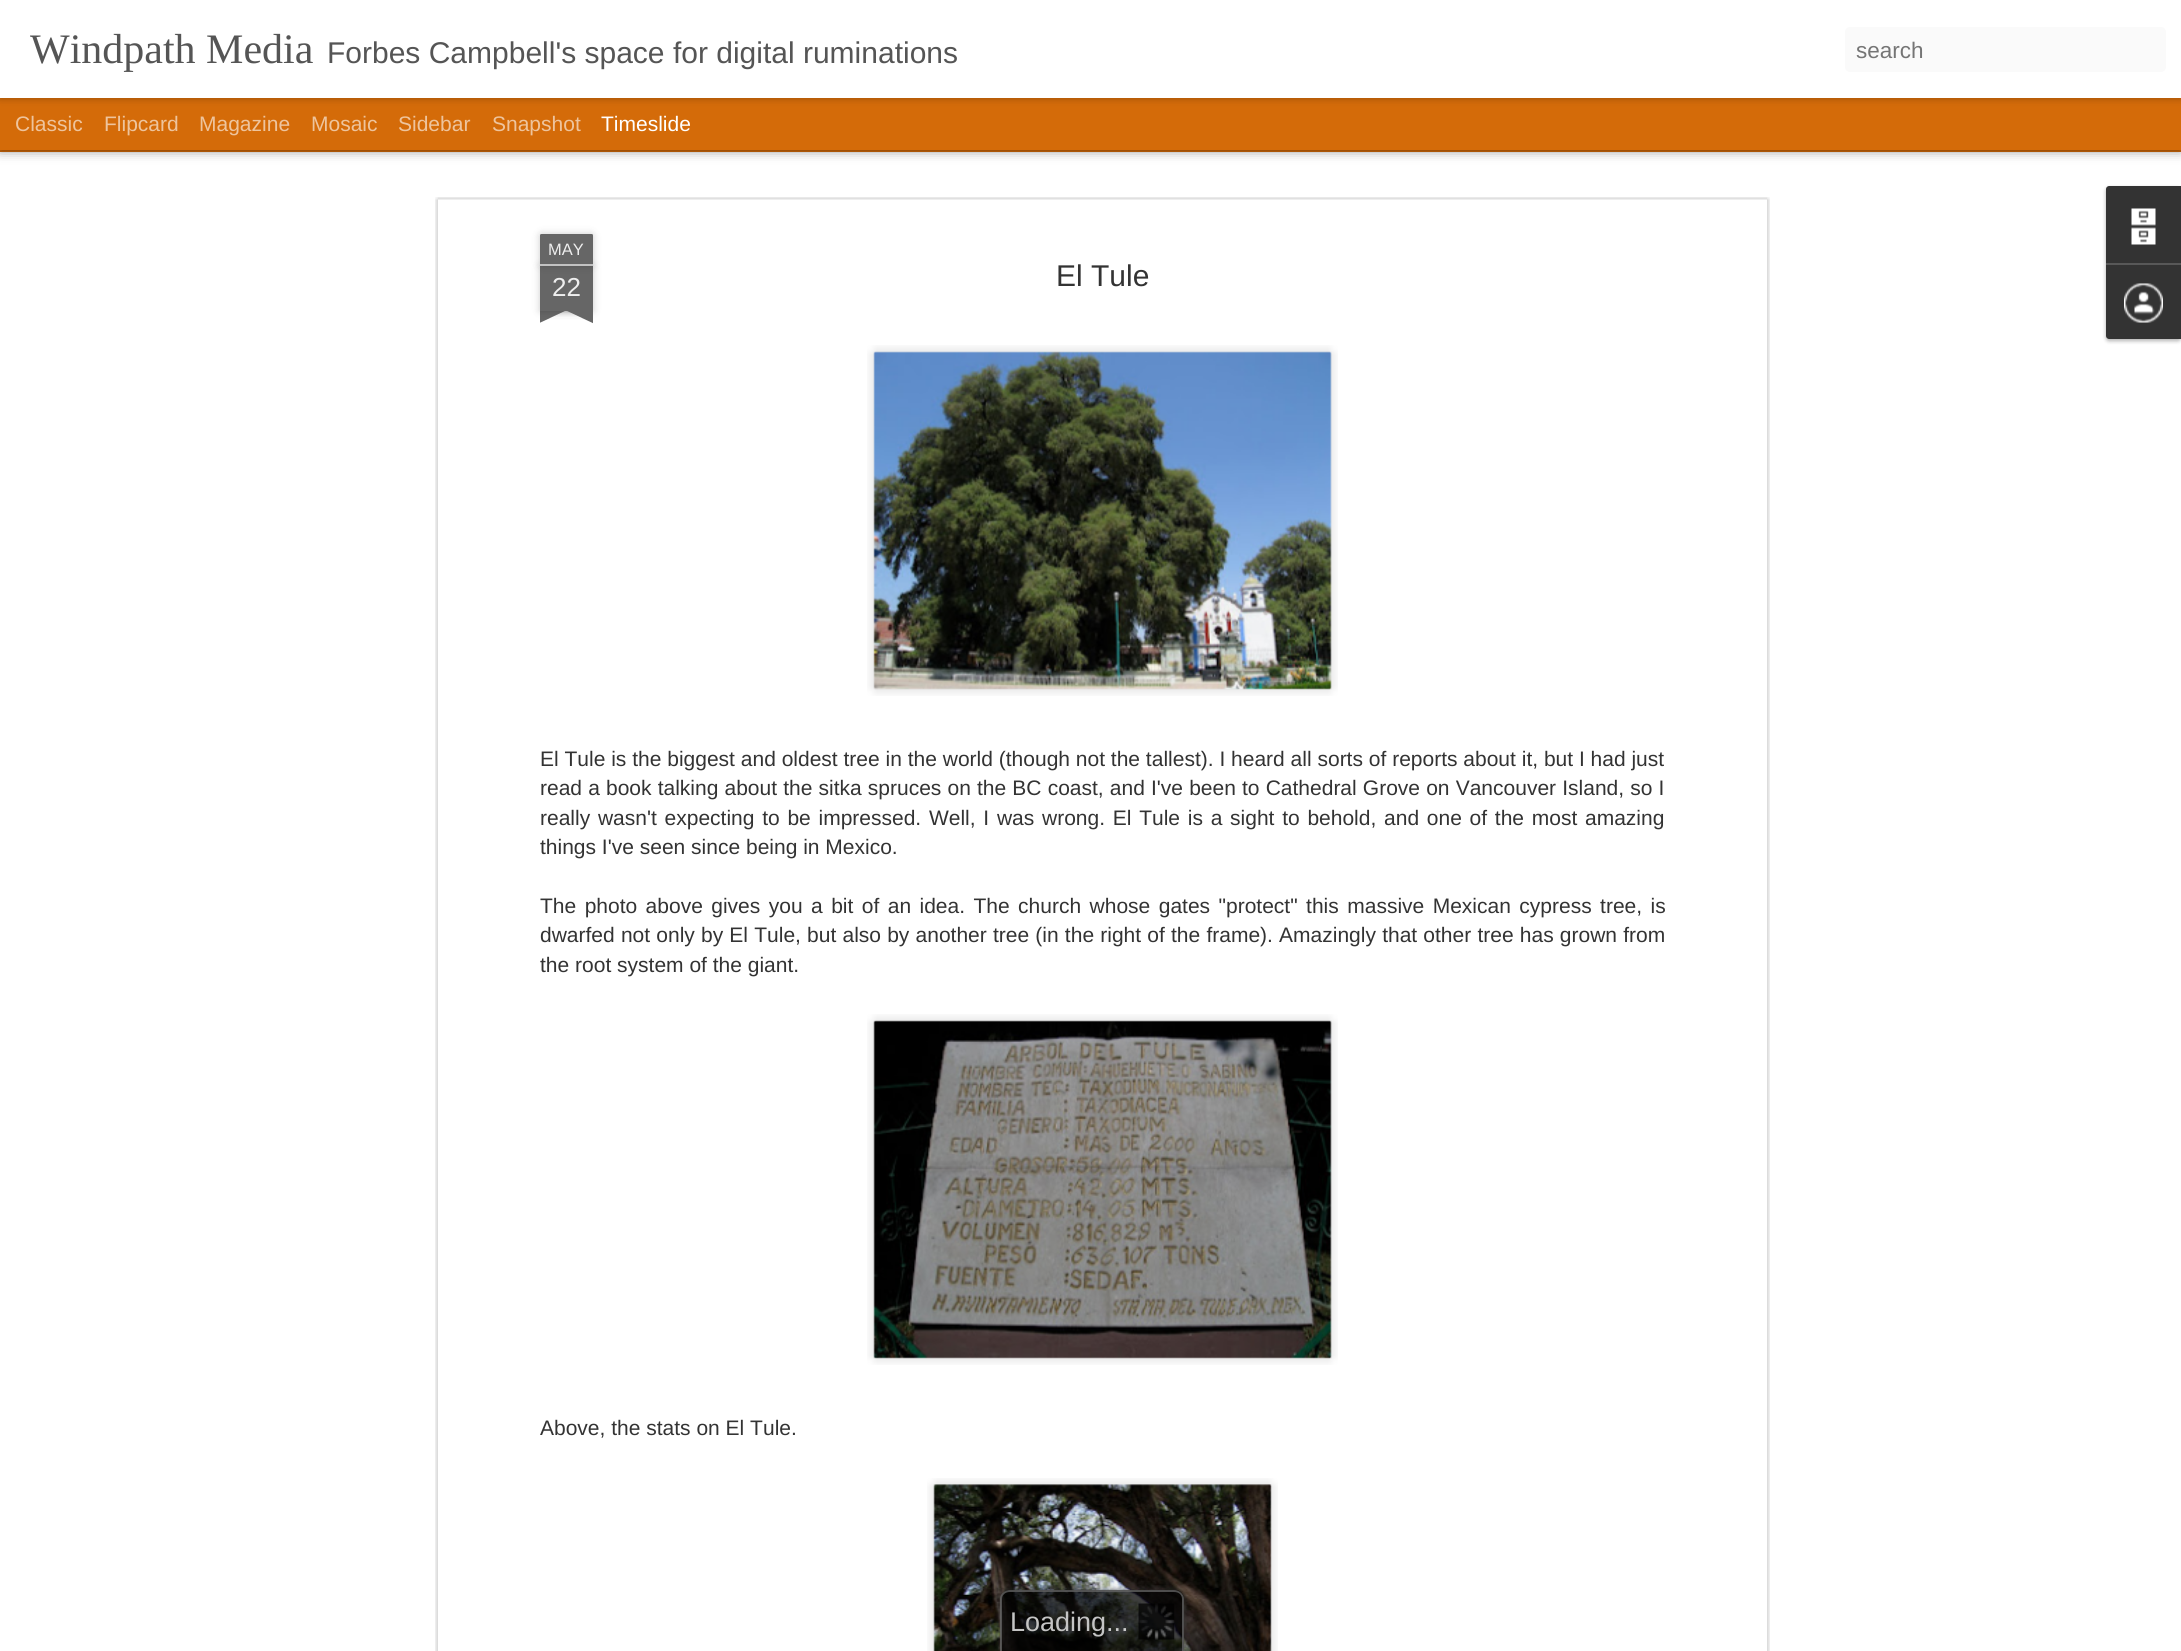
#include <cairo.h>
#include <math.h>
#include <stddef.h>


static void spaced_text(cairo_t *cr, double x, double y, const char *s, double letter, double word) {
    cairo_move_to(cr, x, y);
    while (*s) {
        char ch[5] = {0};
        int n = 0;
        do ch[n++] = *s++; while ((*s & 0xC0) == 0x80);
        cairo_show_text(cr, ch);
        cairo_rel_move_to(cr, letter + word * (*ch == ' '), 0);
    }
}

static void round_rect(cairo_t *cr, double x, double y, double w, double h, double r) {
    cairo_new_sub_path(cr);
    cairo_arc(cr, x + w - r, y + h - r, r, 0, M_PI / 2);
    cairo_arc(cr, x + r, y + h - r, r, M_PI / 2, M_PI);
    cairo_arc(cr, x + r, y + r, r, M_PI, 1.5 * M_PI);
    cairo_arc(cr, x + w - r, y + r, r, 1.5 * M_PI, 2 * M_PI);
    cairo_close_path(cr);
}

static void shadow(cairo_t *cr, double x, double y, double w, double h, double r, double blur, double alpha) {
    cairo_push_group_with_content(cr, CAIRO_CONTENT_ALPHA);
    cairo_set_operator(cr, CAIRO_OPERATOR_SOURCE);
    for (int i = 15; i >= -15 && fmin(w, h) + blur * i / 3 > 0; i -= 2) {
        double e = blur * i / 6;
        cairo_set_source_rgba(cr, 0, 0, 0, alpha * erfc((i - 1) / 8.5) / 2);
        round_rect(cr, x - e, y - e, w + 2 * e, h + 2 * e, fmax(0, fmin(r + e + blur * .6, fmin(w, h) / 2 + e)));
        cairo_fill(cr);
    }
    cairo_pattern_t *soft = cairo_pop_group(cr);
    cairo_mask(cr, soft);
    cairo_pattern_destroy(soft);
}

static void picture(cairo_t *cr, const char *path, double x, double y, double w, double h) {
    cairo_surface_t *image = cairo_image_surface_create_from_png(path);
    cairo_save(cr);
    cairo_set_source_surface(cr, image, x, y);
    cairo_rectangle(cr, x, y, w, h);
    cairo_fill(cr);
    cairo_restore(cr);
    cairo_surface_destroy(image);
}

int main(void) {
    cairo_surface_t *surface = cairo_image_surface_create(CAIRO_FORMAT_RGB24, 2181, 1651);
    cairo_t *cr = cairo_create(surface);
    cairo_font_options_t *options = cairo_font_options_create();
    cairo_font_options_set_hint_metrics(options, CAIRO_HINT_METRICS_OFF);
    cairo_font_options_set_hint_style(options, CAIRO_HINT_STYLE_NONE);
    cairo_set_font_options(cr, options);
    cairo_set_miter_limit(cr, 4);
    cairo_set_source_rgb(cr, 0.831, 0.42, 0.039);
    cairo_paint(cr);
    cairo_set_source_rgb(cr, 1, 1, 1);
    cairo_rectangle(cr, 0, 152, 2181, 1499);
    cairo_fill(cr);
    cairo_set_source_rgb(cr, 0, 0, 0);
    shadow(cr, 0, 98, 2181, 52, 0, 6, 0.5);
    cairo_set_source_rgb(cr, 0.831, 0.42, 0.039);
    cairo_rectangle(cr, 0, 98, 2181, 52);
    cairo_fill(cr);
    cairo_set_source_rgb(cr, 0, 0, 0);
    shadow(cr, 0, 0, 2181, 98, 0, 4, 0.3);
    cairo_set_source_rgb(cr, 1, 1, 1);
    cairo_rectangle(cr, 0, 0, 2181, 98);
    cairo_fill(cr);
    cairo_select_font_face(cr, "Liberation Serif", CAIRO_FONT_SLANT_NORMAL, CAIRO_FONT_WEIGHT_NORMAL);
    cairo_set_font_size(cr, 42);
    cairo_set_source_rgb(cr, 0.333, 0.333, 0.333);
    cairo_move_to(cr, 30, 63);
    cairo_show_text(cr, "Windpath Media");
    cairo_select_font_face(cr, "Liberation Sans", CAIRO_FONT_SLANT_NORMAL, CAIRO_FONT_WEIGHT_NORMAL);
    cairo_set_font_size(cr, 30);
    cairo_move_to(cr, 327, 63);
    cairo_show_text(cr, "Forbes Campbell's space for digital ruminations");
    cairo_set_source_rgb(cr, 0.98, 0.98, 0.98);
    round_rect(cr, 1845, 27, 321, 45, 5);
    cairo_fill(cr);
    cairo_set_font_size(cr, 22.5);
    cairo_set_source_rgb(cr, 0.459, 0.459, 0.459);
    cairo_move_to(cr, 1856, 58);
    cairo_show_text(cr, "search");
    cairo_set_font_size(cr, 21);
    cairo_set_source_rgb(cr, 0.933, 0.769, 0.616);
    cairo_move_to(cr, 15, 131);
    cairo_show_text(cr, "Classic");
    cairo_move_to(cr, 104, 131);
    cairo_show_text(cr, "Flipcard");
    cairo_move_to(cr, 199, 131);
    cairo_show_text(cr, "Magazine");
    cairo_move_to(cr, 311, 131);
    cairo_show_text(cr, "Mosaic");
    cairo_move_to(cr, 398, 131);
    cairo_show_text(cr, "Sidebar");
    cairo_move_to(cr, 492, 131);
    cairo_show_text(cr, "Snapshot");
    cairo_set_source_rgb(cr, 1, 1, 1);
    cairo_move_to(cr, 601, 131);
    cairo_show_text(cr, "Timeslide");
    picture(cr, "img1.png", 435, 197, 1335, 1454);
    cairo_set_source_rgb(cr, 0, 0, 0);
    shadow(cr, 540, 266, 53, 45, 0, 4, 0.2);
    cairo_set_source_rgb(cr, 0.4, 0.4, 0.4);
    cairo_rectangle(cr, 540, 266, 53, 45);
    cairo_fill(cr);
    cairo_set_source_rgb(cr, 0, 0, 0);
    shadow(cr, 540, 234, 53, 32, 1.5, 4, 0.2);
    cairo_set_source_rgb(cr, 0.4, 0.4, 0.4);
    cairo_new_path(cr);
    cairo_move_to(cr, 541.5, 234);
    cairo_line_to(cr, 591.5, 234);
    cairo_curve_to(cr, 592.5, 234, 593, 234.5, 593, 235.5);
    cairo_line_to(cr, 593, 266);
    cairo_line_to(cr, 540, 266);
    cairo_line_to(cr, 540, 235.5);
    cairo_curve_to(cr, 540, 234.5, 540.5, 234, 541.5, 234);
    cairo_close_path(cr);
    cairo_fill(cr);
    cairo_set_source_rgb(cr, 0.761, 0.761, 0.761);
    cairo_rectangle(cr, 540, 264, 53, 2);
    cairo_fill(cr);
    cairo_set_font_size(cr, 16.5);
    cairo_set_source_rgb(cr, 0.933, 0.933, 0.933);
    cairo_move_to(cr, 548, 255);
    cairo_show_text(cr, "MAY");
    cairo_set_font_size(cr, 26);
    cairo_move_to(cr, 552, 296);
    cairo_show_text(cr, "22");
    cairo_save(cr);
    cairo_rectangle(cr, 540, 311, 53, 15);
    cairo_clip(cr);
    cairo_set_source_rgb(cr, 0, 0, 0);
    shadow(cr, 527, 296, 75, 15, 0, 4, 0.2);
    cairo_restore(cr);
    cairo_save(cr);
    cairo_rectangle(cr, 540, 311, 53, 15);
    cairo_clip(cr);
    cairo_set_source_rgb(cr, 0.4, 0.4, 0.4);
    cairo_new_path(cr);
    cairo_move_to(cr, 527, 312);
    cairo_line_to(cr, 595, 280);
    cairo_line_to(cr, 601, 294);
    cairo_line_to(cr, 533, 326);
    cairo_close_path(cr);
    cairo_fill(cr);
    cairo_restore(cr);
    cairo_save(cr);
    cairo_rectangle(cr, 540, 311, 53, 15);
    cairo_clip(cr);
    cairo_set_source_rgb(cr, 0, 0, 0);
    shadow(cr, 531, 296, 75, 15, 0, 4, 0.2);
    cairo_restore(cr);
    cairo_save(cr);
    cairo_rectangle(cr, 540, 311, 53, 15);
    cairo_clip(cr);
    cairo_set_source_rgb(cr, 0.4, 0.4, 0.4);
    cairo_new_path(cr);
    cairo_move_to(cr, 538, 280);
    cairo_line_to(cr, 606, 312);
    cairo_line_to(cr, 599, 326);
    cairo_line_to(cr, 531, 294);
    cairo_close_path(cr);
    cairo_fill(cr);
    cairo_restore(cr);
    cairo_set_font_size(cr, 30);
    cairo_set_source_rgb(cr, 0.2, 0.2, 0.2);
    cairo_move_to(cr, 1056, 286);
    cairo_show_text(cr, "El Tule");
    picture(cr, "img2.png", 867, 345, 471, 351);
    picture(cr, "img3.png", 873, 351, 459, 339);
    cairo_set_font_size(cr, 21);
    cairo_move_to(cr, 540, 766);
    cairo_show_text(cr, "El Tule is the biggest and oldest tree in the world (though not the tallest). I heard all sorts of reports about it, but I had just");
    spaced_text(cr, 540, 795, "read a book talking about the sitka spruces on the BC coast, and I've been to Cathedral Grove on Vancouver Island, so I", 0, 0.3);
    spaced_text(cr, 540, 825, "really wasn't expecting to be impressed. Well, I was wrong. El Tule is a sight to behold, and one of the most amazing", 0, 1.9);
    cairo_move_to(cr, 540, 854);
    cairo_show_text(cr, "things I've seen since being in Mexico.");
    spaced_text(cr, 540, 913, "The photo above gives you a bit of an idea. The church whose gates \"protect\" this massive Mexican cypress tree, is", 0, 2.6);
    spaced_text(cr, 540, 942, "dwarfed not only by El Tule, but also by another tree (in the right of the frame). Amazingly that other tree has grown from", 0, 0.35);
    cairo_move_to(cr, 540, 972);
    cairo_show_text(cr, "the root system of the giant.");
    picture(cr, "img4.png", 867, 1014, 471, 351);
    picture(cr, "img5.png", 873, 1020, 459, 339);
    cairo_move_to(cr, 540, 1435);
    cairo_show_text(cr, "Above, the stats on El Tule.");
    picture(cr, "img6.png", 927, 1478, 351, 173);
    picture(cr, "img7.png", 933, 1484, 339, 167);
    cairo_set_source_rgb(cr, 0, 0, 0);
    shadow(cr, 2106, 188, 75, 153, 3, 2, 0.3);
    cairo_set_source_rgb(cr, 0.2, 0.2, 0.2);
    cairo_new_path(cr);
    cairo_move_to(cr, 2109, 186);
    cairo_line_to(cr, 2181, 186);
    cairo_line_to(cr, 2181, 263);
    cairo_line_to(cr, 2106, 263);
    cairo_line_to(cr, 2106, 189);
    cairo_curve_to(cr, 2106, 187.5, 2107.5, 186, 2109, 186);
    cairo_close_path(cr);
    cairo_fill(cr);
    picture(cr, "img8.png", 2131, 208, 25, 37);
    cairo_new_path(cr);
    cairo_move_to(cr, 2106, 263);
    cairo_line_to(cr, 2181, 263);
    cairo_line_to(cr, 2181, 339);
    cairo_line_to(cr, 2109, 339);
    cairo_curve_to(cr, 2107.5, 339, 2106, 337.5, 2106, 336);
    cairo_close_path(cr);
    cairo_fill(cr);
    cairo_set_source_rgb(cr, 0.345, 0.345, 0.345);
    cairo_rectangle(cr, 2106, 263, 75, 2);
    cairo_fill(cr);
    picture(cr, "img9.png", 2124, 283, 39, 40);
    cairo_save(cr);
    cairo_set_fill_rule(cr, CAIRO_FILL_RULE_EVEN_ODD);
    cairo_new_path(cr);
    cairo_move_to(cr, 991, 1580);
    cairo_line_to(cr, 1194, 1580);
    cairo_line_to(cr, 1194, 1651);
    cairo_line_to(cr, 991, 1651);
    cairo_close_path(cr);
    cairo_move_to(cr, 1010, 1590);
    cairo_line_to(cr, 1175, 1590);
    cairo_curve_to(cr, 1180, 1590, 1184, 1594, 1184, 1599);
    cairo_line_to(cr, 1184, 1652);
    cairo_line_to(cr, 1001, 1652);
    cairo_line_to(cr, 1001, 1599);
    cairo_curve_to(cr, 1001, 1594, 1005, 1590, 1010, 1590);
    cairo_close_path(cr);
    cairo_clip(cr);
    cairo_set_source_rgb(cr, 0.2, 0.2, 0.2);
    shadow(cr, 1001, 1590, 183, 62, 9, 3, 0.75);
    cairo_restore(cr);
    cairo_set_source_rgba(cr, 0, 0, 0, 0.75);
    cairo_new_path(cr);
    cairo_move_to(cr, 1010, 1590);
    cairo_line_to(cr, 1175, 1590);
    cairo_curve_to(cr, 1180, 1590, 1184, 1594, 1184, 1599);
    cairo_line_to(cr, 1184, 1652);
    cairo_line_to(cr, 1001, 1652);
    cairo_line_to(cr, 1001, 1599);
    cairo_curve_to(cr, 1001, 1594, 1005, 1590, 1010, 1590);
    cairo_close_path(cr);
    cairo_fill(cr);
    cairo_set_source_rgba(cr, 0.4, 0.4, 0.4, 0.75);
    cairo_set_fill_rule(cr, CAIRO_FILL_RULE_EVEN_ODD);
    cairo_new_path(cr);
    cairo_move_to(cr, 1010, 1590);
    cairo_line_to(cr, 1174, 1590);
    cairo_curve_to(cr, 1179, 1590, 1184, 1594, 1184, 1599);
    cairo_line_to(cr, 1184, 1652);
    cairo_line_to(cr, 1000, 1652);
    cairo_line_to(cr, 1000, 1599);
    cairo_curve_to(cr, 1000, 1594, 1005, 1590, 1010, 1590);
    cairo_close_path(cr);
    cairo_move_to(cr, 1010, 1592);
    cairo_line_to(cr, 1174, 1592);
    cairo_curve_to(cr, 1179, 1592, 1182, 1595, 1182, 1599);
    cairo_line_to(cr, 1182, 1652);
    cairo_line_to(cr, 1002, 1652);
    cairo_line_to(cr, 1002, 1599);
    cairo_curve_to(cr, 1002, 1595, 1005, 1592, 1010, 1592);
    cairo_close_path(cr);
    cairo_fill(cr);
    picture(cr, "img10.png", 1138, 1603, 37, 37);
    cairo_set_font_size(cr, 27);
    cairo_set_source_rgb(cr, 0.769, 0.769, 0.769);
    cairo_move_to(cr, 1010, 1631);
    cairo_show_text(cr, "Loading");
    cairo_set_source_rgb(cr, 0.792, 0.796, 0.796);
    cairo_move_to(cr, 1106, 1631);
    cairo_show_text(cr, "...");
    cairo_surface_write_to_png(surface, "page.png");
    cairo_font_options_destroy(options);
    cairo_destroy(cr);
    cairo_surface_destroy(surface);
    return 0;
}
